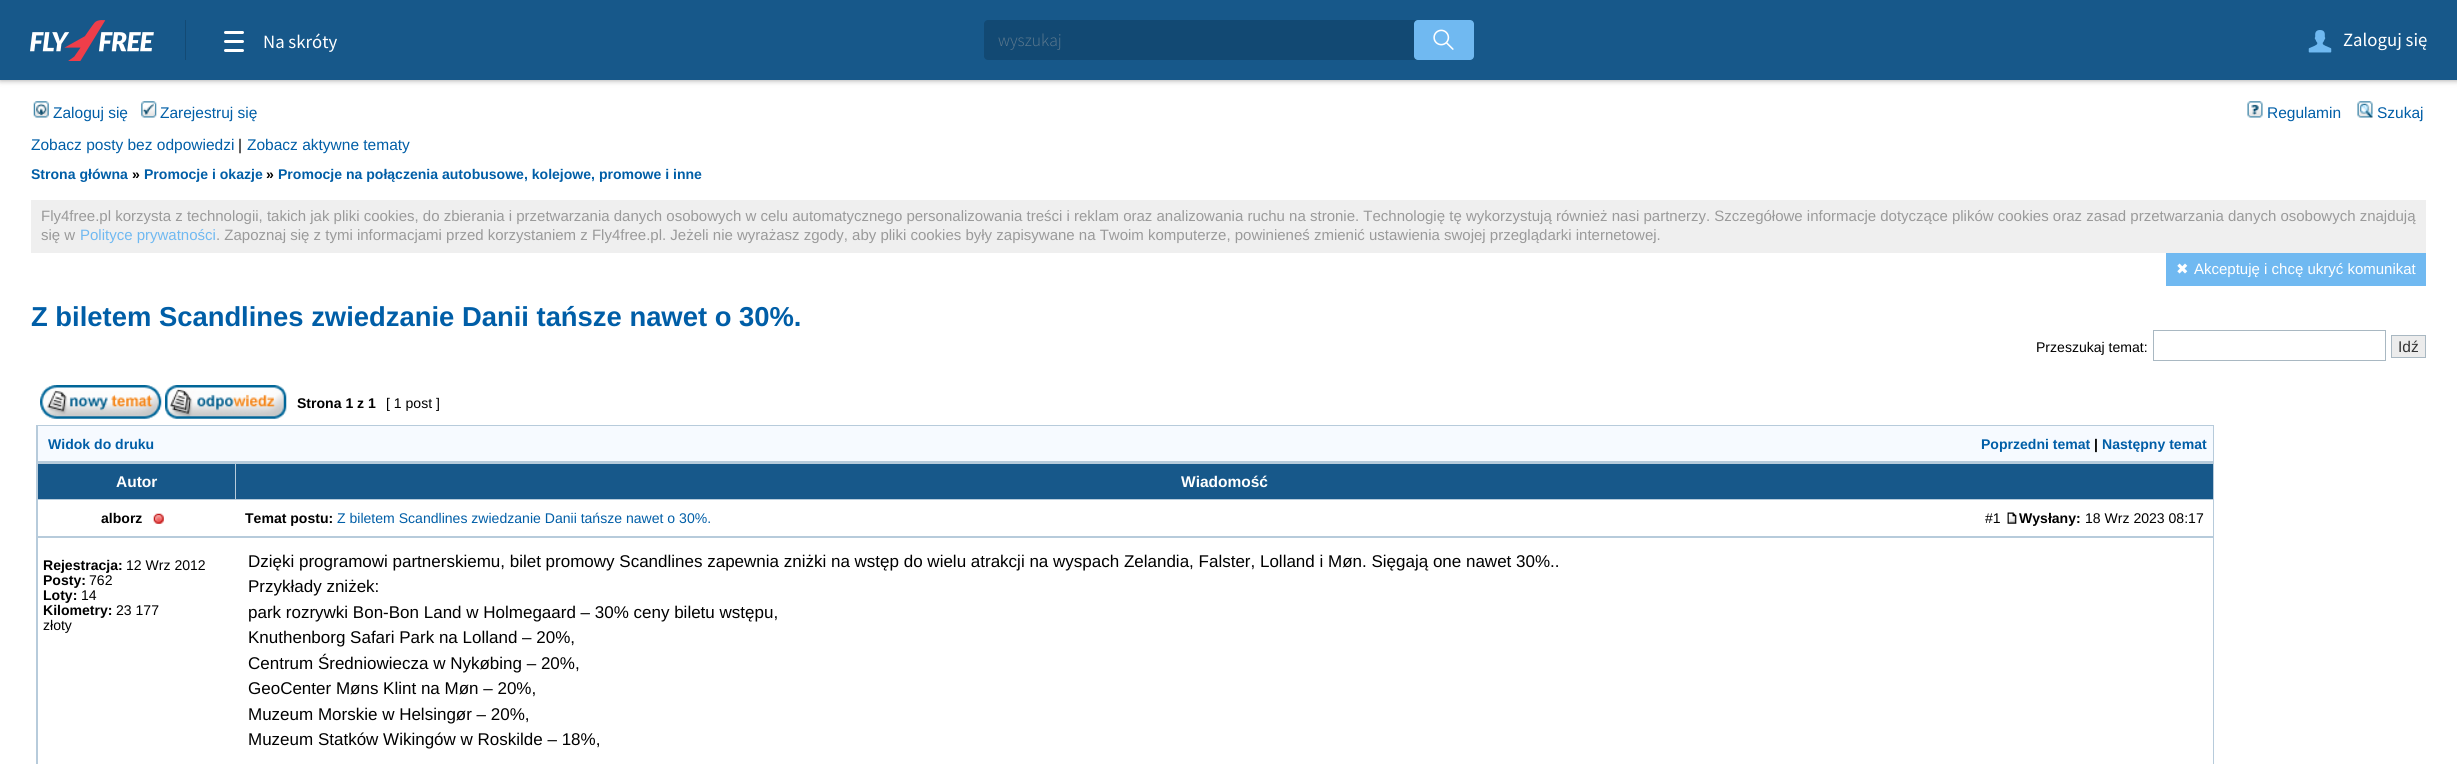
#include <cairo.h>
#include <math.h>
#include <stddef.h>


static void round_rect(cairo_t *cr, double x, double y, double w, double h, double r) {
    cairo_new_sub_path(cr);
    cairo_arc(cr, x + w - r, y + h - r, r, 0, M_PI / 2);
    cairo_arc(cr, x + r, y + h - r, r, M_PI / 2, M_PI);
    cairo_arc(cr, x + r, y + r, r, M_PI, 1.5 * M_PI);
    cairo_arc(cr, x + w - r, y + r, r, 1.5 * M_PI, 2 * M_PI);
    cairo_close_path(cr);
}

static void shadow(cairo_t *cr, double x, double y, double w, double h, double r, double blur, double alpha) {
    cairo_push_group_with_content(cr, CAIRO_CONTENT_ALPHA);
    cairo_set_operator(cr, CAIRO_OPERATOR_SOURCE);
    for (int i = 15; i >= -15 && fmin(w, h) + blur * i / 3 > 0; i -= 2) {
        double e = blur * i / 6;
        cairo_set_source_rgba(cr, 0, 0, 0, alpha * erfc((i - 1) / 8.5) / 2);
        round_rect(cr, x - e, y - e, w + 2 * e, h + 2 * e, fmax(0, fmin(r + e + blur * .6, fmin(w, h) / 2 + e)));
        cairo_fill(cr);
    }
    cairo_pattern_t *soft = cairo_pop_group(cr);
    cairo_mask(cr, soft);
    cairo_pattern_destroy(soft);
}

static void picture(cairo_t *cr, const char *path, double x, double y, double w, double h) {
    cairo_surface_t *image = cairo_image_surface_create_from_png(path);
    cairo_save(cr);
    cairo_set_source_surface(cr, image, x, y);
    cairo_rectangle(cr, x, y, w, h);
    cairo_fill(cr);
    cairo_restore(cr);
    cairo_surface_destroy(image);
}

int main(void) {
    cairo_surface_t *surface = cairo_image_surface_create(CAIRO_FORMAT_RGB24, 2457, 764);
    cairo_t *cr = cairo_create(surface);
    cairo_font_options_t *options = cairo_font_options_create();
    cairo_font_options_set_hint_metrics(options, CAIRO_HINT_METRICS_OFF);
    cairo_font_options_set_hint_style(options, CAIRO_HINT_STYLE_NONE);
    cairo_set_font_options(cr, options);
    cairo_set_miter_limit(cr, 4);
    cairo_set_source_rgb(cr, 1, 1, 1);
    cairo_paint(cr);
    cairo_set_source_rgb(cr, 0, 0, 0);
    shadow(cr, 0, 0, 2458, 80, 0, 3, 0.4);
    cairo_set_source_rgb(cr, 0.09, 0.345, 0.541);
    cairo_rectangle(cr, 0, 0, 2457, 80);
    cairo_fill(cr);
    picture(cr, "img1.png", 30, 20, 124, 41);
    cairo_set_source_rgb(cr, 0.075, 0.29, 0.455);
    cairo_rectangle(cr, 185, 20, 1, 40);
    cairo_fill(cr);
    cairo_set_source_rgb(cr, 1, 1, 1);
    round_rect(cr, 224, 49, 20, 3, 1.5);
    cairo_fill(cr);
    round_rect(cr, 224, 31, 20, 3, 1.5);
    cairo_fill(cr);
    round_rect(cr, 224, 40, 20, 3, 1.5);
    cairo_fill(cr);
    cairo_select_font_face(cr, "Source Sans Pro", CAIRO_FONT_SLANT_NORMAL, CAIRO_FONT_WEIGHT_NORMAL);
    cairo_set_font_size(cr, 18.75);
    cairo_move_to(cr, 263, 48);
    cairo_show_text(cr, "Na skróty");
    cairo_set_source_rgb(cr, 0.071, 0.286, 0.451);
    round_rect(cr, 984, 20, 490, 40, 4);
    cairo_fill(cr);
    cairo_select_font_face(cr, "Source Sans Pro Light", CAIRO_FONT_SLANT_NORMAL, CAIRO_FONT_WEIGHT_NORMAL);
    cairo_set_font_size(cr, 17.5);
    cairo_set_source_rgb(cr, 0.369, 0.478, 0.561);
    cairo_move_to(cr, 998, 46);
    cairo_show_text(cr, "wyszukaj");
    cairo_set_source_rgb(cr, 0.439, 0.725, 0.945);
    round_rect(cr, 1414, 20, 60, 40, 4);
    cairo_fill(cr);
    picture(cr, "img2.png", 1433, 29, 21, 21);
    picture(cr, "img3.png", 2308, 30, 24, 23);
    cairo_select_font_face(cr, "Source Sans Pro", CAIRO_FONT_SLANT_NORMAL, CAIRO_FONT_WEIGHT_NORMAL);
    cairo_set_font_size(cr, 18.75);
    cairo_set_source_rgb(cr, 1, 1, 1);
    cairo_move_to(cr, 2343, 46);
    cairo_show_text(cr, "Zaloguj się");
    picture(cr, "img4.png", 33, 101, 16, 17);
    cairo_select_font_face(cr, "Liberation Sans", CAIRO_FONT_SLANT_NORMAL, CAIRO_FONT_WEIGHT_NORMAL);
    cairo_set_font_size(cr, 15.5);
    cairo_set_source_rgb(cr, 0, 0.369, 0.655);
    cairo_move_to(cr, 53, 118);
    cairo_show_text(cr, "Zaloguj się");
    picture(cr, "img5.png", 141, 101, 16, 17);
    cairo_move_to(cr, 160, 118);
    cairo_show_text(cr, "Zarejestruj się");
    picture(cr, "img6.png", 2247, 101, 16, 17);
    cairo_move_to(cr, 2267, 118);
    cairo_show_text(cr, "Regulamin");
    picture(cr, "img7.png", 2357, 101, 16, 17);
    cairo_move_to(cr, 2377, 118);
    cairo_show_text(cr, "Szukaj");
    cairo_move_to(cr, 31, 150);
    cairo_show_text(cr, "Zobacz posty bez odpowiedzi");
    cairo_set_source_rgb(cr, 0, 0, 0);
    cairo_move_to(cr, 238, 150);
    cairo_show_text(cr, "|");
    cairo_set_source_rgb(cr, 0, 0.369, 0.655);
    cairo_move_to(cr, 247, 150);
    cairo_show_text(cr, "Zobacz aktywne tematy");
    cairo_select_font_face(cr, "Liberation Sans", CAIRO_FONT_SLANT_NORMAL, CAIRO_FONT_WEIGHT_BOLD);
    cairo_set_font_size(cr, 14.05);
    cairo_move_to(cr, 31, 179);
    cairo_show_text(cr, "Strona główna");
    cairo_set_source_rgb(cr, 0, 0, 0);
    cairo_move_to(cr, 132, 179);
    cairo_show_text(cr, "»");
    cairo_set_source_rgb(cr, 0, 0.369, 0.655);
    cairo_move_to(cr, 144, 179);
    cairo_show_text(cr, "Promocje i okazje");
    cairo_set_source_rgb(cr, 0, 0, 0);
    cairo_move_to(cr, 266, 179);
    cairo_show_text(cr, "»");
    cairo_set_source_rgb(cr, 0, 0.369, 0.655);
    cairo_move_to(cr, 278, 179);
    cairo_show_text(cr, "Promocje na połączenia autobusowe, kolejowe, promowe i inne");
    cairo_set_source_rgb(cr, 0.937, 0.937, 0.937);
    cairo_rectangle(cr, 31, 200, 2395, 53);
    cairo_fill(cr);
    cairo_select_font_face(cr, "Liberation Sans", CAIRO_FONT_SLANT_NORMAL, CAIRO_FONT_WEIGHT_NORMAL);
    cairo_set_font_size(cr, 15);
    cairo_set_source_rgb(cr, 0.604, 0.604, 0.604);
    cairo_move_to(cr, 41, 221);
    cairo_show_text(cr, "Fly4free.pl korzysta z technologii, takich jak pliki cookies, do zbierania i przetwarzania danych osobowych w celu automatycznego personalizowania treści i reklam oraz analizowania ruchu na stronie. Technologię tę wykorzystują również nasi partnerzy. Szczegółowe informacje dotyczące plików cookies oraz zasad przetwarzania danych osobowych znajdują");
    cairo_move_to(cr, 41, 240);
    cairo_show_text(cr, "się w");
    cairo_set_source_rgb(cr, 0.439, 0.725, 0.945);
    cairo_move_to(cr, 80, 240);
    cairo_show_text(cr, "Polityce prywatności");
    cairo_set_source_rgb(cr, 0.604, 0.604, 0.604);
    cairo_move_to(cr, 216, 240);
    cairo_show_text(cr, ". Zapoznaj się z tymi informacjami przed korzystaniem z Fly4free.pl. Jeżeli nie wyrażasz zgody, aby pliki cookies były zapisywane na Twoim komputerze, powinieneś zmienić ustawienia swojej przeglądarki internetowej.");
    cairo_set_source_rgb(cr, 0.439, 0.725, 0.945);
    cairo_rectangle(cr, 2166, 253, 260, 33);
    cairo_fill(cr);
    cairo_select_font_face(cr, "DejaVu Sans", CAIRO_FONT_SLANT_NORMAL, CAIRO_FONT_WEIGHT_NORMAL);
    cairo_set_source_rgb(cr, 1, 1, 1);
    cairo_move_to(cr, 2176, 274);
    cairo_show_text(cr, "✖");
    cairo_select_font_face(cr, "Liberation Sans", CAIRO_FONT_SLANT_NORMAL, CAIRO_FONT_WEIGHT_NORMAL);
    cairo_move_to(cr, 2194, 274);
    cairo_show_text(cr, "Akceptuję i chcę ukryć komunikat");
    cairo_select_font_face(cr, "Liberation Sans", CAIRO_FONT_SLANT_NORMAL, CAIRO_FONT_WEIGHT_BOLD);
    cairo_set_font_size(cr, 27.4);
    cairo_set_source_rgb(cr, 0, 0.369, 0.655);
    cairo_move_to(cr, 31, 326);
    cairo_show_text(cr, "Z biletem Scandlines zwiedzanie Danii tańsze nawet o 30%.");
    cairo_select_font_face(cr, "Liberation Sans", CAIRO_FONT_SLANT_NORMAL, CAIRO_FONT_WEIGHT_NORMAL);
    cairo_set_font_size(cr, 14.05);
    cairo_set_source_rgb(cr, 0, 0, 0);
    cairo_move_to(cr, 2036, 352);
    cairo_show_text(cr, "Przeszukaj temat:");
    cairo_rectangle(cr, 2153.5, 330.5, 232, 30);
    cairo_set_source_rgb(cr, 0.663, 0.722, 0.761);
    cairo_set_line_width(cr, 1);
    cairo_stroke(cr);
    cairo_set_source_rgb(cr, 0.925, 0.925, 0.925);
    cairo_rectangle(cr, 2391.5, 335.5, 34, 22);
    cairo_fill_preserve(cr);
    cairo_set_source_rgb(cr, 0.663, 0.722, 0.761);
    cairo_stroke(cr);
    cairo_set_font_size(cr, 15.5);
    cairo_set_source_rgb(cr, 0.2, 0.2, 0.2);
    cairo_move_to(cr, 2398, 352);
    cairo_show_text(cr, "Idź");
    picture(cr, "img8.png", 40, 385, 122, 34);
    picture(cr, "img9.png", 165, 385, 122, 34);
    cairo_select_font_face(cr, "Liberation Sans", CAIRO_FONT_SLANT_NORMAL, CAIRO_FONT_WEIGHT_BOLD);
    cairo_set_font_size(cr, 14.05);
    cairo_set_source_rgb(cr, 0, 0, 0);
    cairo_move_to(cr, 297, 408);
    cairo_show_text(cr, "Strona 1 z 1");
    cairo_select_font_face(cr, "Liberation Sans", CAIRO_FONT_SLANT_NORMAL, CAIRO_FONT_WEIGHT_NORMAL);
    cairo_move_to(cr, 386, 408);
    cairo_show_text(cr, "[ 1 post ]");
    cairo_set_source_rgb(cr, 0.718, 0.796, 0.859);
    cairo_rectangle(cr, 36, 425, 2178, 339);
    cairo_fill(cr);
    cairo_set_source_rgb(cr, 0.961, 0.98, 1);
    cairo_rectangle(cr, 38, 426, 2175, 35);
    cairo_fill(cr);
    cairo_select_font_face(cr, "Liberation Sans", CAIRO_FONT_SLANT_NORMAL, CAIRO_FONT_WEIGHT_BOLD);
    cairo_set_source_rgb(cr, 0, 0.369, 0.655);
    cairo_move_to(cr, 48, 449);
    cairo_show_text(cr, "Widok do druku");
    cairo_move_to(cr, 1981, 449);
    cairo_show_text(cr, "Poprzedni temat");
    cairo_set_source_rgb(cr, 0, 0, 0);
    cairo_move_to(cr, 2094, 449);
    cairo_show_text(cr, "|");
    cairo_set_source_rgb(cr, 0, 0.369, 0.655);
    cairo_move_to(cr, 2102, 449);
    cairo_show_text(cr, "Następny temat");
    cairo_set_source_rgb(cr, 0.09, 0.345, 0.541);
    cairo_rectangle(cr, 38, 464, 197, 35);
    cairo_fill(cr);
    cairo_set_font_size(cr, 15.5);
    cairo_set_source_rgb(cr, 1, 1, 1);
    cairo_move_to(cr, 116, 487);
    cairo_show_text(cr, "Autor");
    cairo_set_source_rgb(cr, 0.09, 0.345, 0.541);
    cairo_rectangle(cr, 236, 464, 1977, 35);
    cairo_fill(cr);
    cairo_set_source_rgb(cr, 1, 1, 1);
    cairo_move_to(cr, 1181, 487);
    cairo_show_text(cr, "Wiadomość");
    cairo_rectangle(cr, 38, 500, 2175, 36);
    cairo_fill(cr);
    cairo_set_font_size(cr, 14.05);
    cairo_set_source_rgb(cr, 0, 0, 0);
    cairo_move_to(cr, 101, 523);
    cairo_show_text(cr, "alborz");
    picture(cr, "img10.png", 153, 513, 11, 11);
    cairo_move_to(cr, 245, 523);
    cairo_show_text(cr, "Temat postu:");
    cairo_select_font_face(cr, "Liberation Sans", CAIRO_FONT_SLANT_NORMAL, CAIRO_FONT_WEIGHT_NORMAL);
    cairo_set_source_rgb(cr, 0, 0.369, 0.655);
    cairo_move_to(cr, 337, 523);
    cairo_show_text(cr, "Z biletem Scandlines zwiedzanie Danii tańsze nawet o 30%.");
    cairo_set_source_rgb(cr, 0, 0, 0);
    cairo_move_to(cr, 1985, 523);
    cairo_show_text(cr, "#1");
    picture(cr, "img11.png", 2007, 512, 10, 12);
    cairo_select_font_face(cr, "Liberation Sans", CAIRO_FONT_SLANT_NORMAL, CAIRO_FONT_WEIGHT_BOLD);
    cairo_move_to(cr, 2019, 523);
    cairo_show_text(cr, "Wysłany:");
    cairo_select_font_face(cr, "Liberation Sans", CAIRO_FONT_SLANT_NORMAL, CAIRO_FONT_WEIGHT_NORMAL);
    cairo_move_to(cr, 2085, 523);
    cairo_show_text(cr, "18 Wrz 2023 08:17");
    cairo_set_source_rgb(cr, 1, 1, 1);
    cairo_rectangle(cr, 38, 538, 2175, 226);
    cairo_fill(cr);
    cairo_select_font_face(cr, "Liberation Sans", CAIRO_FONT_SLANT_NORMAL, CAIRO_FONT_WEIGHT_BOLD);
    cairo_set_source_rgb(cr, 0, 0, 0);
    cairo_move_to(cr, 43, 570);
    cairo_show_text(cr, "Rejestracja:");
    cairo_select_font_face(cr, "Liberation Sans", CAIRO_FONT_SLANT_NORMAL, CAIRO_FONT_WEIGHT_NORMAL);
    cairo_move_to(cr, 126, 570);
    cairo_show_text(cr, "12 Wrz 2012");
    cairo_select_font_face(cr, "Liberation Sans", CAIRO_FONT_SLANT_NORMAL, CAIRO_FONT_WEIGHT_BOLD);
    cairo_move_to(cr, 43, 585);
    cairo_show_text(cr, "Posty:");
    cairo_select_font_face(cr, "Liberation Sans", CAIRO_FONT_SLANT_NORMAL, CAIRO_FONT_WEIGHT_NORMAL);
    cairo_move_to(cr, 89, 585);
    cairo_show_text(cr, "762");
    cairo_select_font_face(cr, "Liberation Sans", CAIRO_FONT_SLANT_NORMAL, CAIRO_FONT_WEIGHT_BOLD);
    cairo_move_to(cr, 43, 600);
    cairo_show_text(cr, "Loty:");
    cairo_select_font_face(cr, "Liberation Sans", CAIRO_FONT_SLANT_NORMAL, CAIRO_FONT_WEIGHT_NORMAL);
    cairo_move_to(cr, 81, 600);
    cairo_show_text(cr, "14");
    cairo_select_font_face(cr, "Liberation Sans", CAIRO_FONT_SLANT_NORMAL, CAIRO_FONT_WEIGHT_BOLD);
    cairo_move_to(cr, 43, 615);
    cairo_show_text(cr, "Kilometry:");
    cairo_select_font_face(cr, "Liberation Sans", CAIRO_FONT_SLANT_NORMAL, CAIRO_FONT_WEIGHT_NORMAL);
    cairo_move_to(cr, 116, 615);
    cairo_show_text(cr, "23 177");
    cairo_move_to(cr, 43, 630);
    cairo_show_text(cr, "złoty");
    cairo_set_font_size(cr, 17);
    cairo_move_to(cr, 248, 567);
    cairo_show_text(cr, "Dzięki programowi partnerskiemu, bilet promowy Scandlines zapewnia zniżki na wstęp do wielu atrakcji na wyspach Zelandia, Falster, Lolland i Møn. Sięgają one nawet 30%..");
    cairo_move_to(cr, 248, 592);
    cairo_show_text(cr, "Przykłady zniżek:");
    cairo_move_to(cr, 248, 618);
    cairo_show_text(cr, "park rozrywki Bon-Bon Land w Holmegaard – 30% ceny biletu wstępu,");
    cairo_move_to(cr, 248, 643);
    cairo_show_text(cr, "Knuthenborg Safari Park na Lolland – 20%,");
    cairo_move_to(cr, 248, 669);
    cairo_show_text(cr, "Centrum Średniowiecza w Nykøbing – 20%,");
    cairo_move_to(cr, 248, 694);
    cairo_show_text(cr, "GeoCenter Møns Klint na Møn – 20%,");
    cairo_move_to(cr, 248, 720);
    cairo_show_text(cr, "Muzeum Morskie w Helsingør – 20%,");
    cairo_move_to(cr, 248, 745);
    cairo_show_text(cr, "Muzeum Statków Wikingów w Roskilde – 18%,");
    cairo_surface_write_to_png(surface, "page.png");
    cairo_font_options_destroy(options);
    cairo_destroy(cr);
    cairo_surface_destroy(surface);
    return 0;
}
